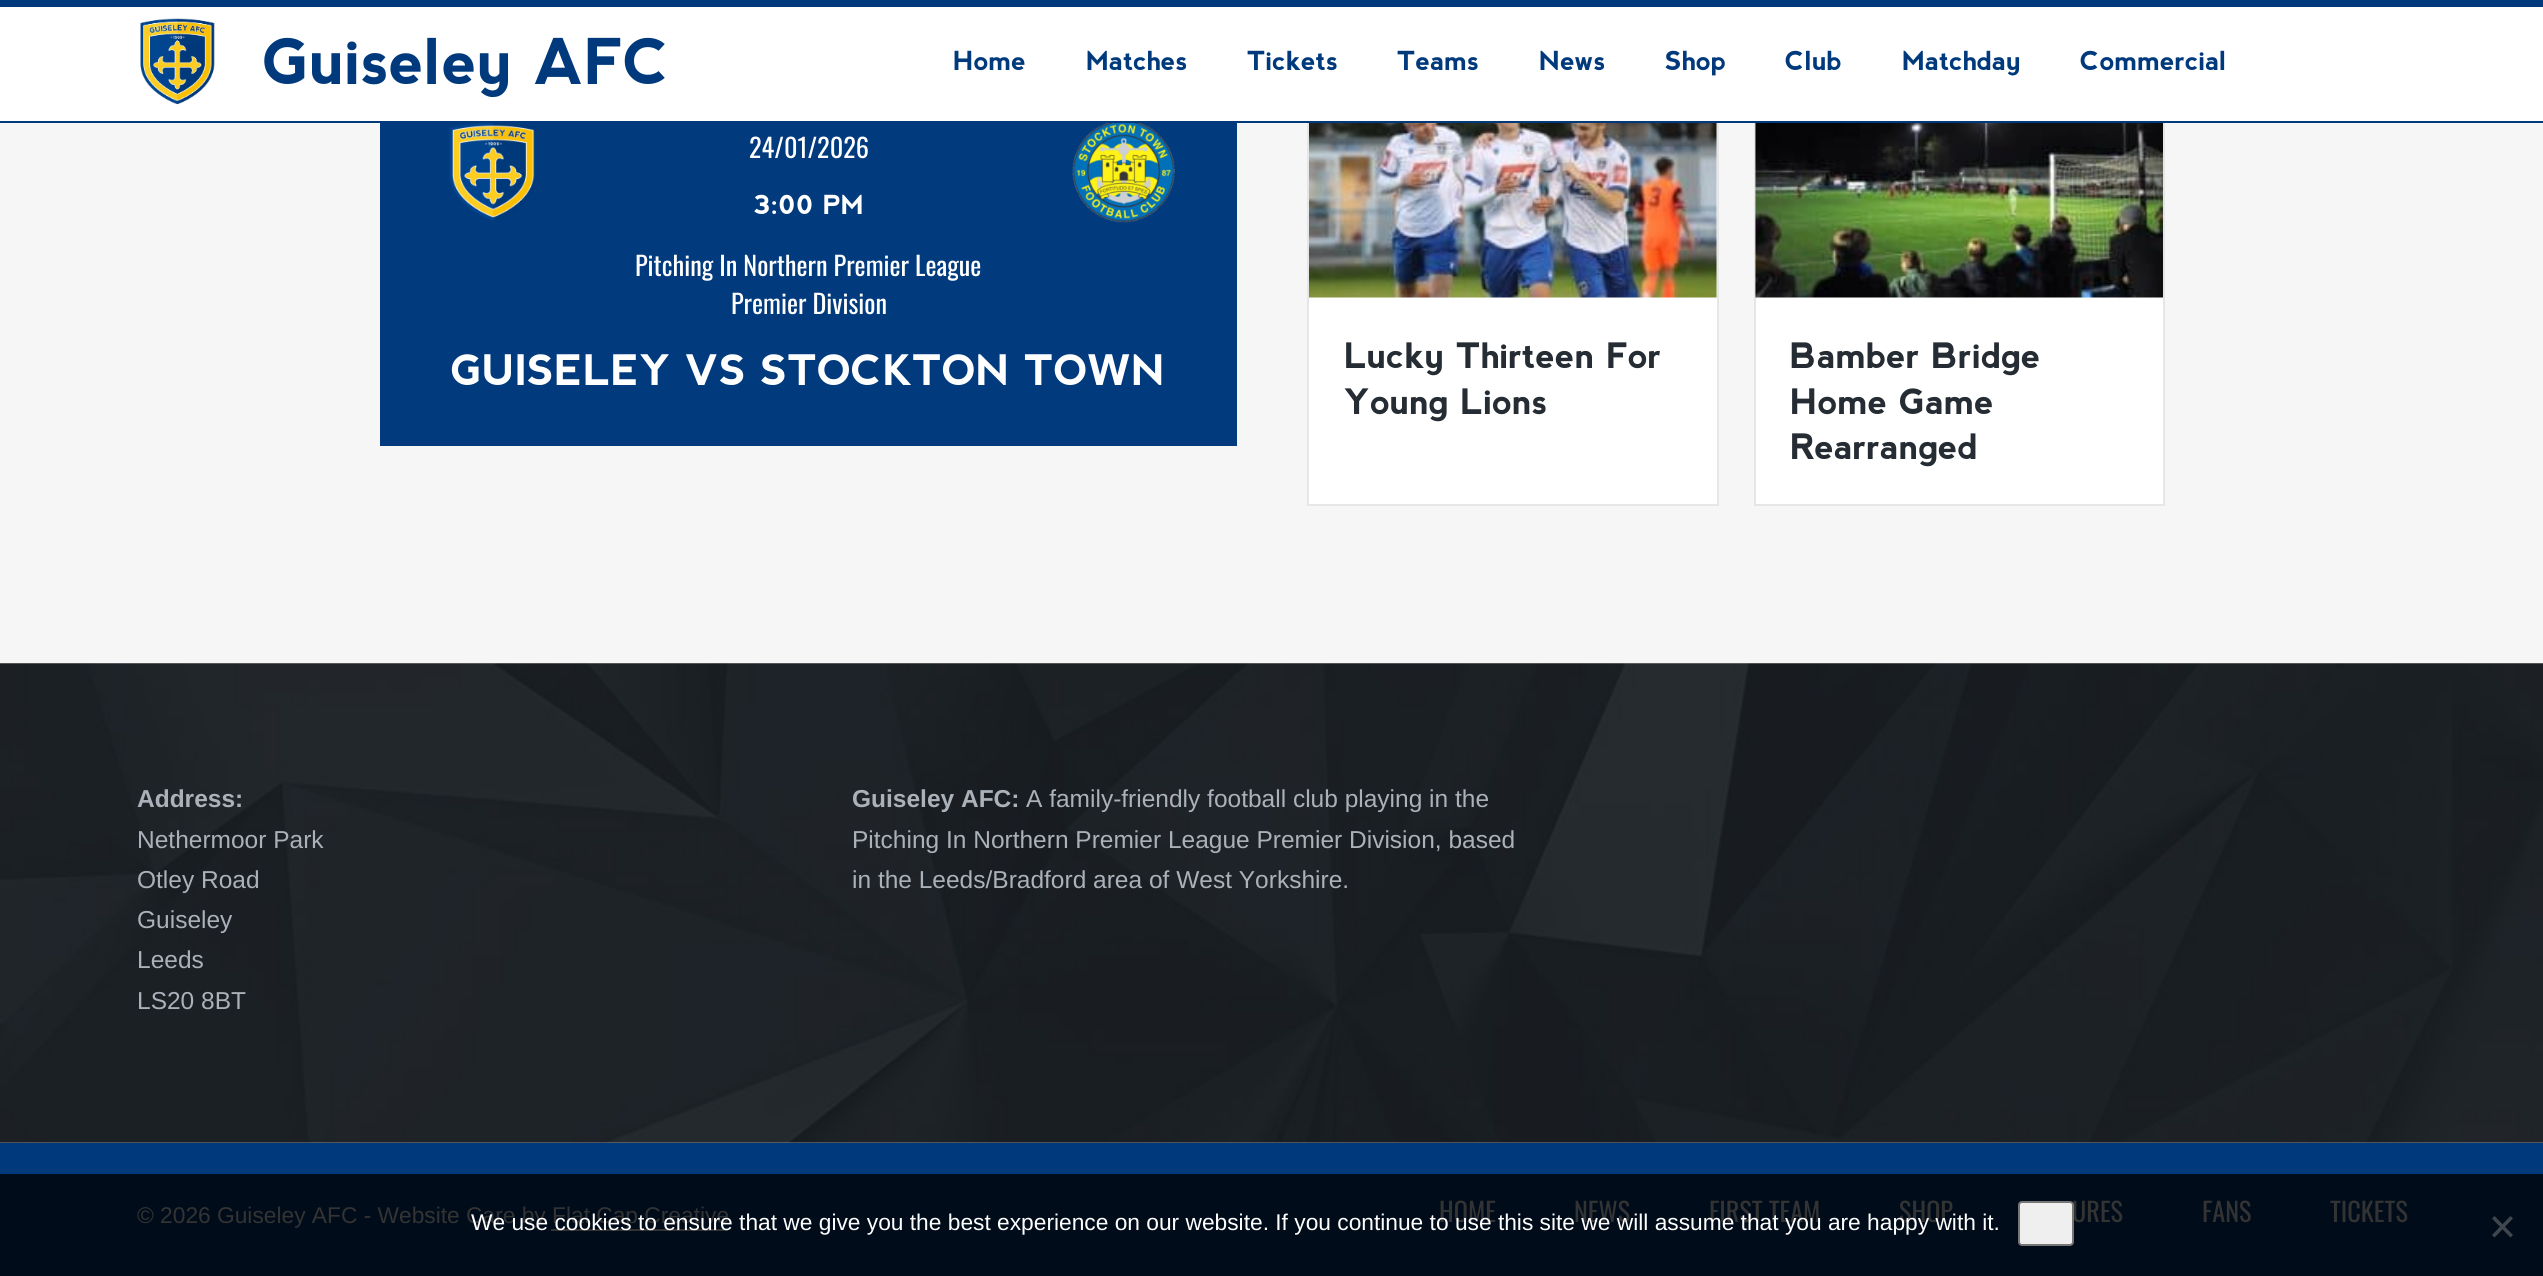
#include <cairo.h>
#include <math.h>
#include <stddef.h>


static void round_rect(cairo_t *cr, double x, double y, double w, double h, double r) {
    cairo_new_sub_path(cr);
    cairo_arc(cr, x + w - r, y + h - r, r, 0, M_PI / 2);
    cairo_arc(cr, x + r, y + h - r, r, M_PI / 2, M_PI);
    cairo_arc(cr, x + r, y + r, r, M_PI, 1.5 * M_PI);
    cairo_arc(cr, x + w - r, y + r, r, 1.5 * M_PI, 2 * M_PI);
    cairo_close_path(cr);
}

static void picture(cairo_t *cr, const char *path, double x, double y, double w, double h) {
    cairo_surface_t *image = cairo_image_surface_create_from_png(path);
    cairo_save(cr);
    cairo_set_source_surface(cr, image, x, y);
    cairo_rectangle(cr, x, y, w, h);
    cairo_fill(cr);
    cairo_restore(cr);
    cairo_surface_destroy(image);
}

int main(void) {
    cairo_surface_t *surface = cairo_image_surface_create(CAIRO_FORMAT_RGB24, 2543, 1276);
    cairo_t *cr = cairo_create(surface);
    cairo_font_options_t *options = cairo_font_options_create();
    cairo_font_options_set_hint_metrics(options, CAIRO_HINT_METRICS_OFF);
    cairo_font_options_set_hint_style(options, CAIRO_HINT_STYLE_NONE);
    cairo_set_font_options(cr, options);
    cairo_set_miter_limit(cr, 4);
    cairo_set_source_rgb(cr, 0.961, 0.961, 0.961);
    cairo_paint(cr);
    cairo_set_source_rgb(cr, 1, 1, 1);
    cairo_rectangle(cr, 1309, 123, 408, 381);
    cairo_fill(cr);
    cairo_rectangle(cr, 1308, 68, 410, 437);
    cairo_set_source_rgb(cr, 0.902, 0.902, 0.902);
    cairo_stroke(cr);
    cairo_set_source_rgb(cr, 1, 1, 1);
    cairo_rectangle(cr, 1756, 297, 407, 207);
    cairo_fill(cr);
    cairo_rectangle(cr, 1755, 68, 409, 437);
    cairo_set_source_rgb(cr, 0.902, 0.902, 0.902);
    cairo_stroke(cr);
    cairo_set_source_rgb(cr, 1, 1, 1);
    cairo_rectangle(cr, 0, 7, 2543, 114);
    cairo_fill(cr);
    cairo_set_source_rgb(cr, 0, 0.227, 0.49);
    cairo_rectangle(cr, 0, 0, 2543, 7);
    cairo_fill(cr);
    cairo_rectangle(cr, 0, 121, 2543, 2);
    cairo_fill(cr);
    picture(cr, "img1.png", 140, 18, 75, 87);
    cairo_select_font_face(cr, "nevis", CAIRO_FONT_SLANT_NORMAL, CAIRO_FONT_WEIGHT_BOLD);
    cairo_set_font_size(cr, 63);
    cairo_move_to(cr, 263, 84);
    cairo_show_text(cr, "Guiseley AFC");
    cairo_set_font_size(cr, 26.25);
    cairo_move_to(cr, 953, 70);
    cairo_show_text(cr, "Home");
    cairo_move_to(cr, 1086, 70);
    cairo_show_text(cr, "Matches");
    cairo_move_to(cr, 1247, 70);
    cairo_show_text(cr, "Tickets");
    cairo_move_to(cr, 1397, 70);
    cairo_show_text(cr, "Teams");
    cairo_move_to(cr, 1539, 70);
    cairo_show_text(cr, "News");
    cairo_move_to(cr, 1665, 70);
    cairo_show_text(cr, "Shop");
    cairo_move_to(cr, 1785, 70);
    cairo_show_text(cr, "Club");
    cairo_move_to(cr, 1902, 70);
    cairo_show_text(cr, "Matchday");
    cairo_move_to(cr, 2080, 70);
    cairo_show_text(cr, "Commercial");
    cairo_set_source_rgb(cr, 0.004, 0.227, 0.49);
    cairo_rectangle(cr, 380, 123, 857, 323);
    cairo_fill(cr);
    picture(cr, "img2.png", 449, 123, 88, 98);
    cairo_select_font_face(cr, "Oswald", CAIRO_FONT_SLANT_NORMAL, CAIRO_FONT_WEIGHT_NORMAL);
    cairo_set_source_rgb(cr, 1, 1, 1);
    cairo_move_to(cr, 749, 158);
    cairo_show_text(cr, "24/01/2026");
    picture(cr, "img3.png", 1072, 123, 103, 100);
    cairo_select_font_face(cr, "nevis", CAIRO_FONT_SLANT_NORMAL, CAIRO_FONT_WEIGHT_BOLD);
    cairo_move_to(cr, 753, 214);
    cairo_show_text(cr, "3:00 PM");
    cairo_select_font_face(cr, "Oswald", CAIRO_FONT_SLANT_NORMAL, CAIRO_FONT_WEIGHT_NORMAL);
    cairo_move_to(cr, 635, 276);
    cairo_show_text(cr, "Pitching In Northern Premier League");
    cairo_move_to(cr, 731, 314);
    cairo_show_text(cr, "Premier Division");
    cairo_select_font_face(cr, "nevis", CAIRO_FONT_SLANT_NORMAL, CAIRO_FONT_WEIGHT_BOLD);
    cairo_set_font_size(cr, 42);
    cairo_move_to(cr, 451, 385);
    cairo_show_text(cr, "GUISELEY VS STOCKTON TOWN");
    picture(cr, "img4.png", 1309, 123, 408, 175);
    cairo_set_font_size(cr, 35);
    cairo_set_source_rgb(cr, 0.145, 0.173, 0.2);
    cairo_move_to(cr, 1344, 368);
    cairo_show_text(cr, "Lucky Thirteen For");
    cairo_move_to(cr, 1344, 414);
    cairo_show_text(cr, "Young Lions");
    picture(cr, "img5.png", 1755, 123, 408, 175);
    cairo_move_to(cr, 1790, 368);
    cairo_show_text(cr, "Bamber Bridge");
    cairo_move_to(cr, 1790, 414);
    cairo_show_text(cr, "Home Game");
    cairo_move_to(cr, 1790, 459);
    cairo_show_text(cr, "Rearranged");
    picture(cr, "img6.png", 0, 663, 2543, 480);
    cairo_select_font_face(cr, "Liberation Sans", CAIRO_FONT_SLANT_NORMAL, CAIRO_FONT_WEIGHT_BOLD);
    cairo_set_font_size(cr, 24.5);
    cairo_set_source_rgb(cr, 0.671, 0.694, 0.725);
    cairo_move_to(cr, 137, 807);
    cairo_show_text(cr, "Address:");
    cairo_select_font_face(cr, "Liberation Sans", CAIRO_FONT_SLANT_NORMAL, CAIRO_FONT_WEIGHT_NORMAL);
    cairo_move_to(cr, 137, 848);
    cairo_show_text(cr, "Nethermoor Park");
    cairo_move_to(cr, 137, 888);
    cairo_show_text(cr, "Otley Road");
    cairo_move_to(cr, 137, 928);
    cairo_show_text(cr, "Guiseley");
    cairo_move_to(cr, 137, 968);
    cairo_show_text(cr, "Leeds");
    cairo_move_to(cr, 137, 1009);
    cairo_show_text(cr, "LS20 8BT");
    cairo_select_font_face(cr, "Liberation Sans", CAIRO_FONT_SLANT_NORMAL, CAIRO_FONT_WEIGHT_BOLD);
    cairo_move_to(cr, 852, 807);
    cairo_show_text(cr, "Guiseley AFC:");
    cairo_select_font_face(cr, "Liberation Sans", CAIRO_FONT_SLANT_NORMAL, CAIRO_FONT_WEIGHT_NORMAL);
    cairo_move_to(cr, 1026, 807);
    cairo_show_text(cr, "A family-friendly football club playing in the");
    cairo_move_to(cr, 852, 848);
    cairo_show_text(cr, "Pitching In Northern Premier League Premier Division, based");
    cairo_move_to(cr, 852, 888);
    cairo_show_text(cr, "in the Leeds/Bradford area of West Yorkshire.");
    cairo_set_source_rgb(cr, 0, 0.227, 0.49);
    cairo_rectangle(cr, 0, 1143, 2543, 31);
    cairo_fill(cr);
    cairo_set_source_rgb(cr, 0, 0.047, 0.098);
    cairo_rectangle(cr, 0, 1174, 2543, 102);
    cairo_fill(cr);
    cairo_set_font_size(cr, 22.75);
    cairo_set_source_rgb(cr, 0.2, 0.2, 0.2);
    cairo_move_to(cr, 137, 1223);
    cairo_show_text(cr, "© 2026 Guiseley AFC - Website Care by Flat Cap Creative");
    cairo_rectangle(cr, 551, 1229, 177, 2);
    cairo_fill(cr);
    cairo_select_font_face(cr, "Oswald", CAIRO_FONT_SLANT_NORMAL, CAIRO_FONT_WEIGHT_NORMAL);
    cairo_set_font_size(cr, 26.25);
    cairo_move_to(cr, 1439, 1222);
    cairo_show_text(cr, "HOME");
    cairo_move_to(cr, 1574, 1222);
    cairo_show_text(cr, "NEWS");
    cairo_move_to(cr, 1709, 1222);
    cairo_show_text(cr, "FIRST TEAM");
    cairo_move_to(cr, 1899, 1222);
    cairo_show_text(cr, "SHOP");
    cairo_move_to(cr, 2072, 1222);
    cairo_show_text(cr, "URES");
    cairo_move_to(cr, 2202, 1222);
    cairo_show_text(cr, "FANS");
    cairo_move_to(cr, 2330, 1222);
    cairo_show_text(cr, "TICKETS");
    cairo_select_font_face(cr, "Liberation Sans", CAIRO_FONT_SLANT_NORMAL, CAIRO_FONT_WEIGHT_NORMAL);
    cairo_set_font_size(cr, 22.75);
    cairo_set_source_rgb(cr, 1, 1, 1);
    cairo_move_to(cr, 471, 1230);
    cairo_show_text(cr, "We use cookies to ensure that we give you the best experience on our website. If you continue to use this site we will assume that you are happy with it.");
    cairo_set_source_rgb(cr, 0.937, 0.937, 0.937);
    round_rect(cr, 2019, 1202, 54, 43, 3);
    cairo_fill_preserve(cr);
    cairo_set_source_rgb(cr, 0.463, 0.463, 0.463);
    cairo_stroke(cr);
    cairo_set_source_rgb(cr, 0.251, 0.275, 0.302);
    cairo_new_path(cr);
    cairo_move_to(cr, 2510.5, 1216);
    cairo_line_to(cr, 2513, 1218.5);
    cairo_line_to(cr, 2494.5, 1237.5);
    cairo_line_to(cr, 2492, 1235);
    cairo_close_path(cr);
    cairo_fill(cr);
    cairo_new_path(cr);
    cairo_move_to(cr, 2492, 1218.5);
    cairo_line_to(cr, 2494.5, 1216);
    cairo_line_to(cr, 2513, 1235);
    cairo_line_to(cr, 2510.5, 1237.5);
    cairo_close_path(cr);
    cairo_fill(cr);
    cairo_surface_write_to_png(surface, "page.png");
    cairo_font_options_destroy(options);
    cairo_destroy(cr);
    cairo_surface_destroy(surface);
    return 0;
}
